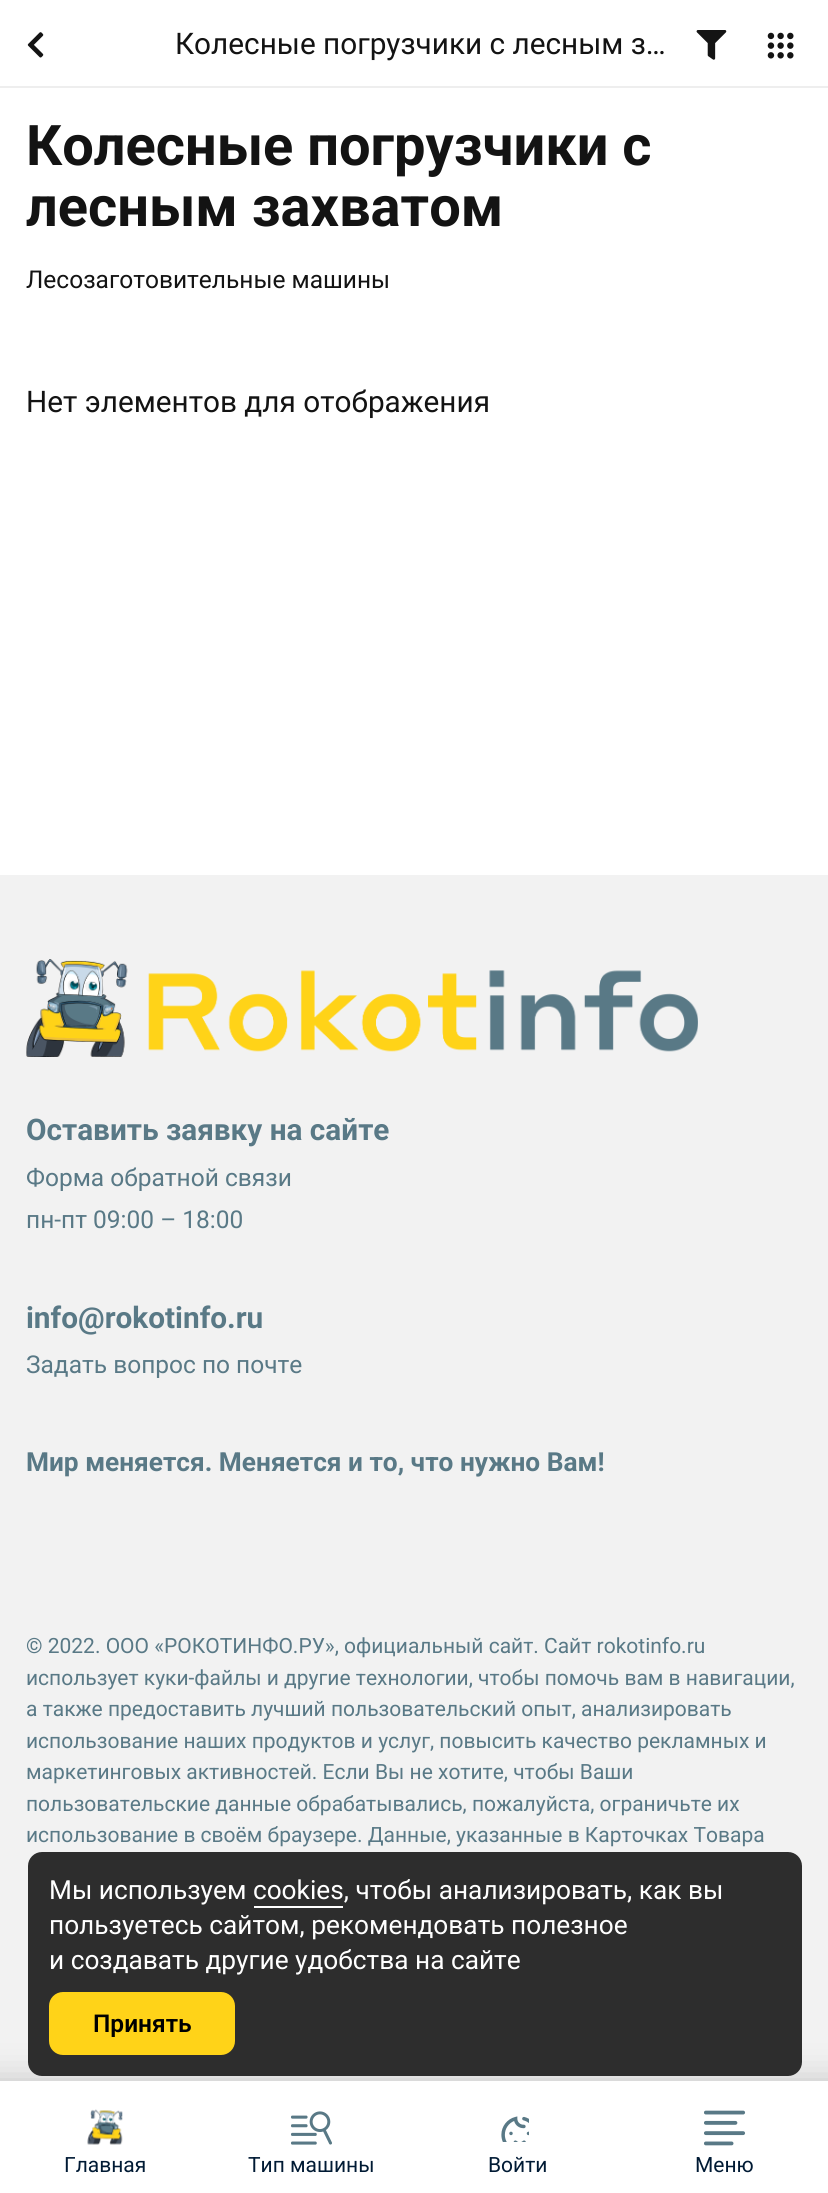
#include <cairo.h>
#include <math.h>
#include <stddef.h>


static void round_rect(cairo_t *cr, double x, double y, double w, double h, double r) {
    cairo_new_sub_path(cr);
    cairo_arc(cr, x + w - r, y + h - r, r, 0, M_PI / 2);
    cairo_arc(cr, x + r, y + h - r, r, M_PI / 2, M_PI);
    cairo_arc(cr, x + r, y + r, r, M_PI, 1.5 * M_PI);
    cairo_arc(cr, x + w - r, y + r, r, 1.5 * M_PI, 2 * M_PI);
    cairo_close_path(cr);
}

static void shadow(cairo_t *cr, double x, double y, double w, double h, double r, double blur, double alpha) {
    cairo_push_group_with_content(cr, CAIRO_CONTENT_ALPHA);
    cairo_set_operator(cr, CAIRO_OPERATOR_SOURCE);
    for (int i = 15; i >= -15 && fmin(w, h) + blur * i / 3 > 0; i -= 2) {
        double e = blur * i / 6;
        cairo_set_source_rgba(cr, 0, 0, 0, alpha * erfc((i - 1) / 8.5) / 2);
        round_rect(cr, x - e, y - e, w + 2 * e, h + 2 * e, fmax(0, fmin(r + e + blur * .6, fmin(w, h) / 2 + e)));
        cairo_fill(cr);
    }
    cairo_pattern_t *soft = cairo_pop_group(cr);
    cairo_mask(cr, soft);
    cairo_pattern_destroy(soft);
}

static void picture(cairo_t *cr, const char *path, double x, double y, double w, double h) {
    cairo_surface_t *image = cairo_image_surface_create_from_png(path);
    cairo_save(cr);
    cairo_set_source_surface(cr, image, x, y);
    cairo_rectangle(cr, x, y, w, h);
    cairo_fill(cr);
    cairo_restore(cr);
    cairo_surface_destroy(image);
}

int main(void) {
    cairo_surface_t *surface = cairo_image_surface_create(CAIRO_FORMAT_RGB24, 828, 2193);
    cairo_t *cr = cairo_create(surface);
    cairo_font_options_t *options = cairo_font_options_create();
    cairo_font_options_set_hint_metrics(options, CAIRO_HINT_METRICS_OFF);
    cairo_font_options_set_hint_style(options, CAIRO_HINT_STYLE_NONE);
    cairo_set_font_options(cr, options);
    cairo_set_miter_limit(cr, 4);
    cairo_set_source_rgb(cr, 1, 1, 1);
    cairo_paint(cr);
    cairo_set_source_rgb(cr, 0.933, 0.933, 0.933);
    cairo_rectangle(cr, 0, 86, 828, 2);
    cairo_fill(cr);
    picture(cr, "img1.png", 27, 32, 17, 26);
    cairo_select_font_face(cr, "Roboto", CAIRO_FONT_SLANT_NORMAL, CAIRO_FONT_WEIGHT_NORMAL);
    cairo_set_font_size(cr, 29.75);
    cairo_set_source_rgb(cr, 0.078, 0.078, 0.078);
    cairo_move_to(cr, 175, 54);
    cairo_show_text(cr, "Колесные погрузчики с лесным з…");
    picture(cr, "img2.png", 696, 30, 31, 30);
    picture(cr, "img3.png", 767, 32, 27, 27);
    cairo_set_source_rgb(cr, 0.949, 0.949, 0.949);
    cairo_rectangle(cr, 0, 875, 828, 1206);
    cairo_fill(cr);
    cairo_set_source_rgb(cr, 0, 0, 0);
    shadow(cr, -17, 2081, 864, 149, 0, 17.5, 0.2);
    cairo_set_source_rgb(cr, 1, 1, 1);
    cairo_rectangle(cr, 0, 2081, 828, 112);
    cairo_fill(cr);
    picture(cr, "img4.png", 87, 2109, 36, 36);
    cairo_set_font_size(cr, 21);
    cairo_set_source_rgb(cr, 0, 0.102, 0.204);
    cairo_move_to(cr, 64, 2172);
    cairo_show_text(cr, "Главная");
    picture(cr, "img5.png", 291, 2111, 41, 34);
    cairo_move_to(cr, 248, 2172);
    cairo_show_text(cr, "Тип машины");
    picture(cr, "img6.png", 501, 2116, 28, 26);
    cairo_move_to(cr, 488, 2172);
    cairo_show_text(cr, "Войти");
    picture(cr, "img7.png", 704, 2110, 42, 36);
    cairo_move_to(cr, 695, 2172);
    cairo_show_text(cr, "Меню");
    cairo_select_font_face(cr, "Roboto", CAIRO_FONT_SLANT_NORMAL, CAIRO_FONT_WEIGHT_BOLD);
    cairo_set_font_size(cr, 56);
    cairo_set_source_rgb(cr, 0.078, 0.078, 0.078);
    cairo_move_to(cr, 26, 165);
    cairo_show_text(cr, "Колесные погрузчики с");
    cairo_move_to(cr, 26, 226);
    cairo_show_text(cr, "лесным захватом");
    cairo_select_font_face(cr, "Roboto", CAIRO_FONT_SLANT_NORMAL, CAIRO_FONT_WEIGHT_NORMAL);
    cairo_set_font_size(cr, 24.5);
    cairo_move_to(cr, 26, 288);
    cairo_show_text(cr, "Лесозаготовительные машины");
    cairo_set_font_size(cr, 29.75);
    cairo_move_to(cr, 26, 412);
    cairo_show_text(cr, "Нет элементов для отображения");
    picture(cr, "img8.png", 26, 959, 672, 98);
    cairo_select_font_face(cr, "Roboto", CAIRO_FONT_SLANT_NORMAL, CAIRO_FONT_WEIGHT_BOLD);
    cairo_set_source_rgb(cr, 0.349, 0.475, 0.525);
    cairo_move_to(cr, 26, 1140);
    cairo_show_text(cr, "Оставить заявку на сайте");
    cairo_select_font_face(cr, "Roboto", CAIRO_FONT_SLANT_NORMAL, CAIRO_FONT_WEIGHT_NORMAL);
    cairo_set_font_size(cr, 24.5);
    cairo_move_to(cr, 26, 1186);
    cairo_show_text(cr, "Форма обратной связи");
    cairo_move_to(cr, 26, 1228);
    cairo_show_text(cr, "пн-пт 09:00 – 18:00");
    cairo_select_font_face(cr, "Roboto", CAIRO_FONT_SLANT_NORMAL, CAIRO_FONT_WEIGHT_BOLD);
    cairo_set_font_size(cr, 29.75);
    cairo_move_to(cr, 26, 1328);
    cairo_show_text(cr, "info@rokotinfo.ru");
    cairo_select_font_face(cr, "Roboto", CAIRO_FONT_SLANT_NORMAL, CAIRO_FONT_WEIGHT_NORMAL);
    cairo_set_font_size(cr, 24.5);
    cairo_move_to(cr, 26, 1373);
    cairo_show_text(cr, "Задать вопрос по почте");
    cairo_select_font_face(cr, "Roboto", CAIRO_FONT_SLANT_NORMAL, CAIRO_FONT_WEIGHT_BOLD);
    cairo_set_font_size(cr, 26.25);
    cairo_move_to(cr, 26, 1471);
    cairo_show_text(cr, "Мир меняется. Меняется и то, что нужно Вам!");
    cairo_select_font_face(cr, "Roboto", CAIRO_FONT_SLANT_NORMAL, CAIRO_FONT_WEIGHT_NORMAL);
    cairo_set_font_size(cr, 21);
    cairo_move_to(cr, 26, 1653);
    cairo_show_text(cr, "© 2022. ООО «РОКОТИНФО.РУ», официальный сайт. Сайт rokotinfo.ru");
    cairo_move_to(cr, 26, 1685);
    cairo_show_text(cr, "использует куки-файлы и другие технологии, чтобы помочь вам в навигации,");
    cairo_move_to(cr, 26, 1716);
    cairo_show_text(cr, "а также предоставить лучший пользовательский опыт, анализировать");
    cairo_move_to(cr, 26, 1748);
    cairo_show_text(cr, "использование наших продуктов и услуг, повысить качество рекламных и");
    cairo_move_to(cr, 26, 1779);
    cairo_show_text(cr, "маркетинговых активностей. Если Вы не хотите, чтобы Ваши");
    cairo_move_to(cr, 26, 1811);
    cairo_show_text(cr, "пользовательские данные обрабатывались, пожалуйста, ограничьте их");
    cairo_move_to(cr, 26, 1842);
    cairo_show_text(cr, "использование в своём браузере. Данные, указанные в Карточках Товара");
    cairo_set_source_rgba(cr, 0.141, 0.141, 0.141, 0.95);
    round_rect(cr, 28, 1852, 774, 224, 14);
    cairo_fill(cr);
    cairo_set_font_size(cr, 26.25);
    cairo_set_source_rgb(cr, 1, 1, 1);
    cairo_move_to(cr, 49, 1899);
    cairo_show_text(cr, "Мы используем cookies, чтобы анализировать, как вы");
    cairo_rectangle(cr, 254, 1906, 89, 2);
    cairo_fill(cr);
    cairo_move_to(cr, 49, 1934);
    cairo_show_text(cr, "пользуетесь сайтом, рекомендовать полезное");
    cairo_move_to(cr, 49, 1969);
    cairo_show_text(cr, "и создавать другие удобства на сайте");
    cairo_set_source_rgb(cr, 1, 0.827, 0.094);
    round_rect(cr, 49, 1992, 186, 63, 14);
    cairo_fill(cr);
    cairo_select_font_face(cr, "Roboto SemiBold", CAIRO_FONT_SLANT_NORMAL, CAIRO_FONT_WEIGHT_NORMAL);
    cairo_set_font_size(cr, 24.5);
    cairo_set_source_rgb(cr, 0, 0, 0);
    cairo_move_to(cr, 93, 2032);
    cairo_show_text(cr, "Принять");
    cairo_surface_write_to_png(surface, "page.png");
    cairo_font_options_destroy(options);
    cairo_destroy(cr);
    cairo_surface_destroy(surface);
    return 0;
}
